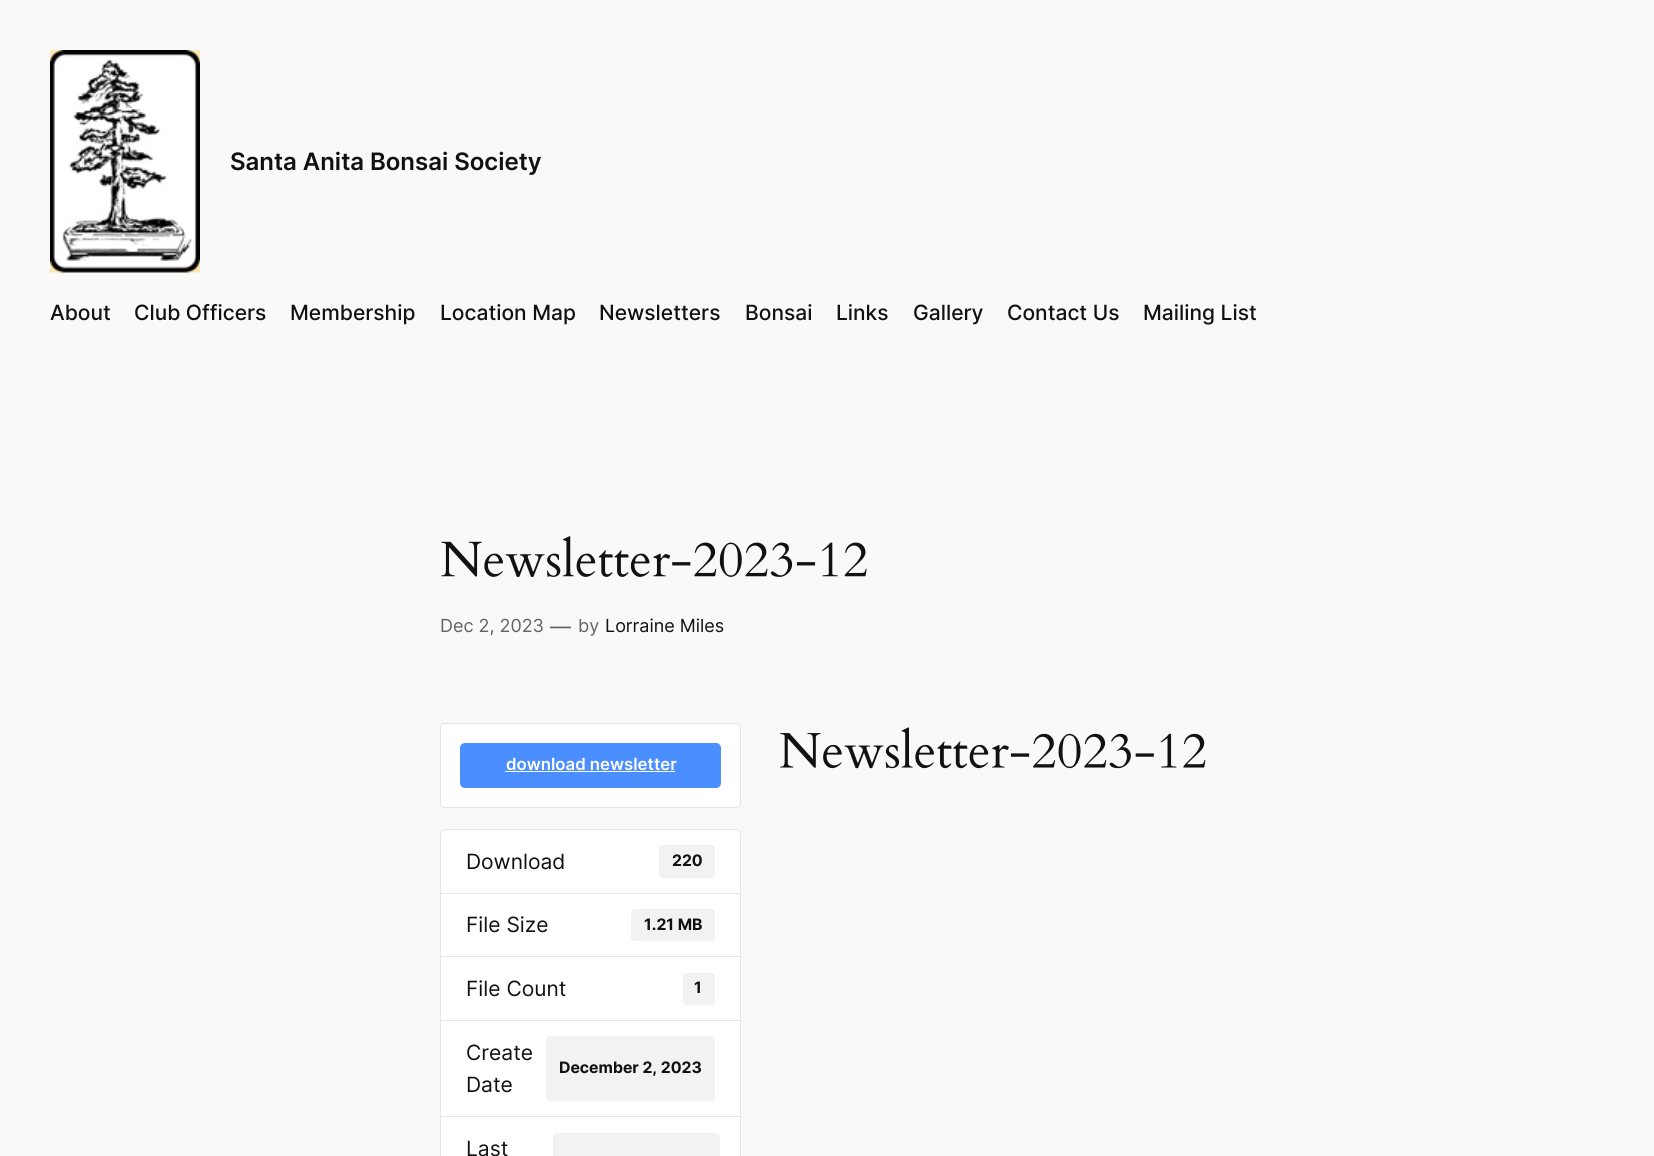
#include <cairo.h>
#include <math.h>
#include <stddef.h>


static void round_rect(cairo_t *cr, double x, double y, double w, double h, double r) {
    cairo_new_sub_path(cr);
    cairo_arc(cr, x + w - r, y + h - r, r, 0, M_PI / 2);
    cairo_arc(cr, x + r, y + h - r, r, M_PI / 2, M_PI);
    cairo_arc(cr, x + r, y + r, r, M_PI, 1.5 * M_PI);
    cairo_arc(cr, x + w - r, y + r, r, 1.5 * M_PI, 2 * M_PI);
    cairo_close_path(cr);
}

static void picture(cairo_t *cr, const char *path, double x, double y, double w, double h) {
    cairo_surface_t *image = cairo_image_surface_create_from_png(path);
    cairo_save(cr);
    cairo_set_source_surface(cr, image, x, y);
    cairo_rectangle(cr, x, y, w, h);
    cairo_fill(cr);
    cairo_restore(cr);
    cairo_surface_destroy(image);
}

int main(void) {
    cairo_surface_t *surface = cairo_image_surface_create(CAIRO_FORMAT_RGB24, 1654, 1156);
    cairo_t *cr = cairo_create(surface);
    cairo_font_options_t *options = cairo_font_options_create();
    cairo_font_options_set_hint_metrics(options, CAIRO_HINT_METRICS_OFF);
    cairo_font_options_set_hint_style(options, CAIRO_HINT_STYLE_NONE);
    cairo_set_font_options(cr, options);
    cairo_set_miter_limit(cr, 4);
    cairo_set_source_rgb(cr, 0.976, 0.976, 0.976);
    cairo_paint(cr);
    picture(cr, "img1.png", 50, 50, 150, 223);
    cairo_select_font_face(cr, "Inter SemiBold", CAIRO_FONT_SLANT_NORMAL, CAIRO_FONT_WEIGHT_NORMAL);
    cairo_set_font_size(cr, 24);
    cairo_set_source_rgb(cr, 0.067, 0.067, 0.067);
    cairo_move_to(cr, 230, 170);
    cairo_show_text(cr, "Santa Anita Bonsai Society");
    cairo_select_font_face(cr, "Inter Medium", CAIRO_FONT_SLANT_NORMAL, CAIRO_FONT_WEIGHT_NORMAL);
    cairo_set_font_size(cr, 21);
    cairo_move_to(cr, 50, 320);
    cairo_show_text(cr, "About");
    cairo_move_to(cr, 134, 320);
    cairo_show_text(cr, "Club Officers");
    cairo_move_to(cr, 290, 320);
    cairo_show_text(cr, "Membership");
    cairo_move_to(cr, 440, 320);
    cairo_show_text(cr, "Location Map");
    cairo_move_to(cr, 599, 320);
    cairo_show_text(cr, "Newsletters");
    cairo_move_to(cr, 745, 320);
    cairo_show_text(cr, "Bonsai");
    cairo_move_to(cr, 836, 320);
    cairo_show_text(cr, "Links");
    cairo_move_to(cr, 913, 320);
    cairo_show_text(cr, "Gallery");
    cairo_move_to(cr, 1007, 320);
    cairo_show_text(cr, "Contact Us");
    cairo_move_to(cr, 1143, 320);
    cairo_show_text(cr, "Mailing List");
    picture(cr, "img2.png", 441, 536, 426, 41);
    cairo_select_font_face(cr, "Inter", CAIRO_FONT_SLANT_NORMAL, CAIRO_FONT_WEIGHT_NORMAL);
    cairo_set_font_size(cr, 18);
    cairo_set_source_rgb(cr, 0.388, 0.388, 0.388);
    cairo_move_to(cr, 440, 632);
    cairo_show_text(cr, "Dec 2, 2023");
    cairo_set_font_size(cr, 21);
    cairo_move_to(cr, 550, 634);
    cairo_show_text(cr, "—");
    cairo_set_font_size(cr, 18);
    cairo_move_to(cr, 578, 632);
    cairo_show_text(cr, "by");
    cairo_set_source_rgb(cr, 0.067, 0.067, 0.067);
    cairo_move_to(cr, 605, 632);
    cairo_show_text(cr, "Lorraine Miles");
    picture(cr, "img3.png", 780, 727, 426, 42);
    cairo_set_source_rgb(cr, 1, 1, 1);
    round_rect(cr, 440.5, 723.5, 300, 84, 3.5);
    cairo_fill_preserve(cr);
    cairo_set_source_rgb(cr, 0.898, 0.898, 0.898);
    cairo_set_line_width(cr, 1);
    cairo_stroke(cr);
    cairo_set_source_rgb(cr, 0.29, 0.557, 1);
    round_rect(cr, 460, 743, 261, 45, 5);
    cairo_fill(cr);
    cairo_select_font_face(cr, "Inter SemiBold", CAIRO_FONT_SLANT_NORMAL, CAIRO_FONT_WEIGHT_NORMAL);
    cairo_set_font_size(cr, 16.75);
    cairo_set_source_rgb(cr, 1, 1, 1);
    cairo_move_to(cr, 506, 770);
    cairo_show_text(cr, "download newsletter");
    cairo_rectangle(cr, 505, 771, 170, 1);
    cairo_fill(cr);
    cairo_new_path(cr);
    cairo_move_to(cr, 445, 829.5);
    cairo_line_to(cr, 736, 829.5);
    cairo_curve_to(cr, 738.5, 829.5, 740.5, 831.5, 740.5, 834);
    cairo_line_to(cr, 740.5, 893.5);
    cairo_line_to(cr, 440.5, 893.5);
    cairo_line_to(cr, 440.5, 834);
    cairo_curve_to(cr, 440.5, 831.5, 442.5, 829.5, 445, 829.5);
    cairo_close_path(cr);
    cairo_fill_preserve(cr);
    cairo_set_source_rgb(cr, 0.898, 0.898, 0.898);
    cairo_stroke(cr);
    cairo_select_font_face(cr, "Inter", CAIRO_FONT_SLANT_NORMAL, CAIRO_FONT_WEIGHT_NORMAL);
    cairo_set_font_size(cr, 21);
    cairo_set_source_rgb(cr, 0.067, 0.067, 0.067);
    cairo_move_to(cr, 466, 869);
    cairo_show_text(cr, "Download");
    cairo_set_source_rgb(cr, 0.949, 0.949, 0.949);
    round_rect(cr, 659, 845, 56, 33, 4);
    cairo_fill(cr);
    cairo_select_font_face(cr, "Inter", CAIRO_FONT_SLANT_NORMAL, CAIRO_FONT_WEIGHT_BOLD);
    cairo_set_font_size(cr, 15.75);
    cairo_set_source_rgb(cr, 0.067, 0.067, 0.067);
    cairo_move_to(cr, 672, 866);
    cairo_show_text(cr, "220");
    cairo_set_source_rgb(cr, 1, 1, 1);
    cairo_rectangle(cr, 441, 894, 299, 62);
    cairo_fill(cr);
    cairo_rectangle(cr, 440.5, 893.5, 300, 64);
    cairo_set_source_rgb(cr, 0.898, 0.898, 0.898);
    cairo_stroke(cr);
    cairo_select_font_face(cr, "Inter", CAIRO_FONT_SLANT_NORMAL, CAIRO_FONT_WEIGHT_NORMAL);
    cairo_set_font_size(cr, 21);
    cairo_set_source_rgb(cr, 0.067, 0.067, 0.067);
    cairo_move_to(cr, 466, 932);
    cairo_show_text(cr, "File Size");
    cairo_set_source_rgb(cr, 0.949, 0.949, 0.949);
    round_rect(cr, 631, 909, 84, 32, 4);
    cairo_fill(cr);
    cairo_select_font_face(cr, "Inter", CAIRO_FONT_SLANT_NORMAL, CAIRO_FONT_WEIGHT_BOLD);
    cairo_set_font_size(cr, 15.75);
    cairo_set_source_rgb(cr, 0.067, 0.067, 0.067);
    cairo_move_to(cr, 644, 930);
    cairo_show_text(cr, "1.21 MB");
    cairo_set_source_rgb(cr, 1, 1, 1);
    cairo_rectangle(cr, 440.5, 956.5, 300, 64);
    cairo_fill_preserve(cr);
    cairo_set_source_rgb(cr, 0.898, 0.898, 0.898);
    cairo_stroke(cr);
    cairo_select_font_face(cr, "Inter", CAIRO_FONT_SLANT_NORMAL, CAIRO_FONT_WEIGHT_NORMAL);
    cairo_set_font_size(cr, 21);
    cairo_set_source_rgb(cr, 0.067, 0.067, 0.067);
    cairo_move_to(cr, 466, 996);
    cairo_show_text(cr, "File Count");
    cairo_set_source_rgb(cr, 0.949, 0.949, 0.949);
    round_rect(cr, 683, 973, 32, 32, 4);
    cairo_fill(cr);
    cairo_select_font_face(cr, "Inter", CAIRO_FONT_SLANT_NORMAL, CAIRO_FONT_WEIGHT_BOLD);
    cairo_set_font_size(cr, 15.75);
    cairo_set_source_rgb(cr, 0.067, 0.067, 0.067);
    cairo_move_to(cr, 694, 993);
    cairo_show_text(cr, "1");
    cairo_set_source_rgb(cr, 1, 1, 1);
    cairo_rectangle(cr, 441, 1021, 299, 95);
    cairo_fill(cr);
    cairo_rectangle(cr, 440.5, 1020.5, 300, 97);
    cairo_set_source_rgb(cr, 0.898, 0.898, 0.898);
    cairo_stroke(cr);
    cairo_select_font_face(cr, "Inter", CAIRO_FONT_SLANT_NORMAL, CAIRO_FONT_WEIGHT_NORMAL);
    cairo_set_font_size(cr, 21);
    cairo_set_source_rgb(cr, 0.067, 0.067, 0.067);
    cairo_move_to(cr, 466, 1060);
    cairo_show_text(cr, "Create");
    cairo_set_source_rgb(cr, 0.949, 0.949, 0.949);
    round_rect(cr, 546, 1036, 169, 65, 4);
    cairo_fill(cr);
    cairo_select_font_face(cr, "Inter", CAIRO_FONT_SLANT_NORMAL, CAIRO_FONT_WEIGHT_BOLD);
    cairo_set_font_size(cr, 15.75);
    cairo_set_source_rgb(cr, 0.067, 0.067, 0.067);
    cairo_move_to(cr, 559, 1073);
    cairo_show_text(cr, "December 2, 2023");
    cairo_select_font_face(cr, "Inter", CAIRO_FONT_SLANT_NORMAL, CAIRO_FONT_WEIGHT_NORMAL);
    cairo_set_font_size(cr, 21);
    cairo_move_to(cr, 466, 1092);
    cairo_show_text(cr, "Date");
    cairo_set_source_rgb(cr, 1, 1, 1);
    cairo_rectangle(cr, 440.5, 1116.5, 300, 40);
    cairo_fill_preserve(cr);
    cairo_set_source_rgb(cr, 0.898, 0.898, 0.898);
    cairo_stroke(cr);
    cairo_set_source_rgb(cr, 0.067, 0.067, 0.067);
    cairo_move_to(cr, 466, 1156);
    cairo_show_text(cr, "Last");
    cairo_set_source_rgb(cr, 0.949, 0.949, 0.949);
    round_rect(cr, 553, 1133, 167, 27, 4);
    cairo_fill(cr);
    cairo_surface_write_to_png(surface, "page.png");
    cairo_font_options_destroy(options);
    cairo_destroy(cr);
    cairo_surface_destroy(surface);
    return 0;
}
